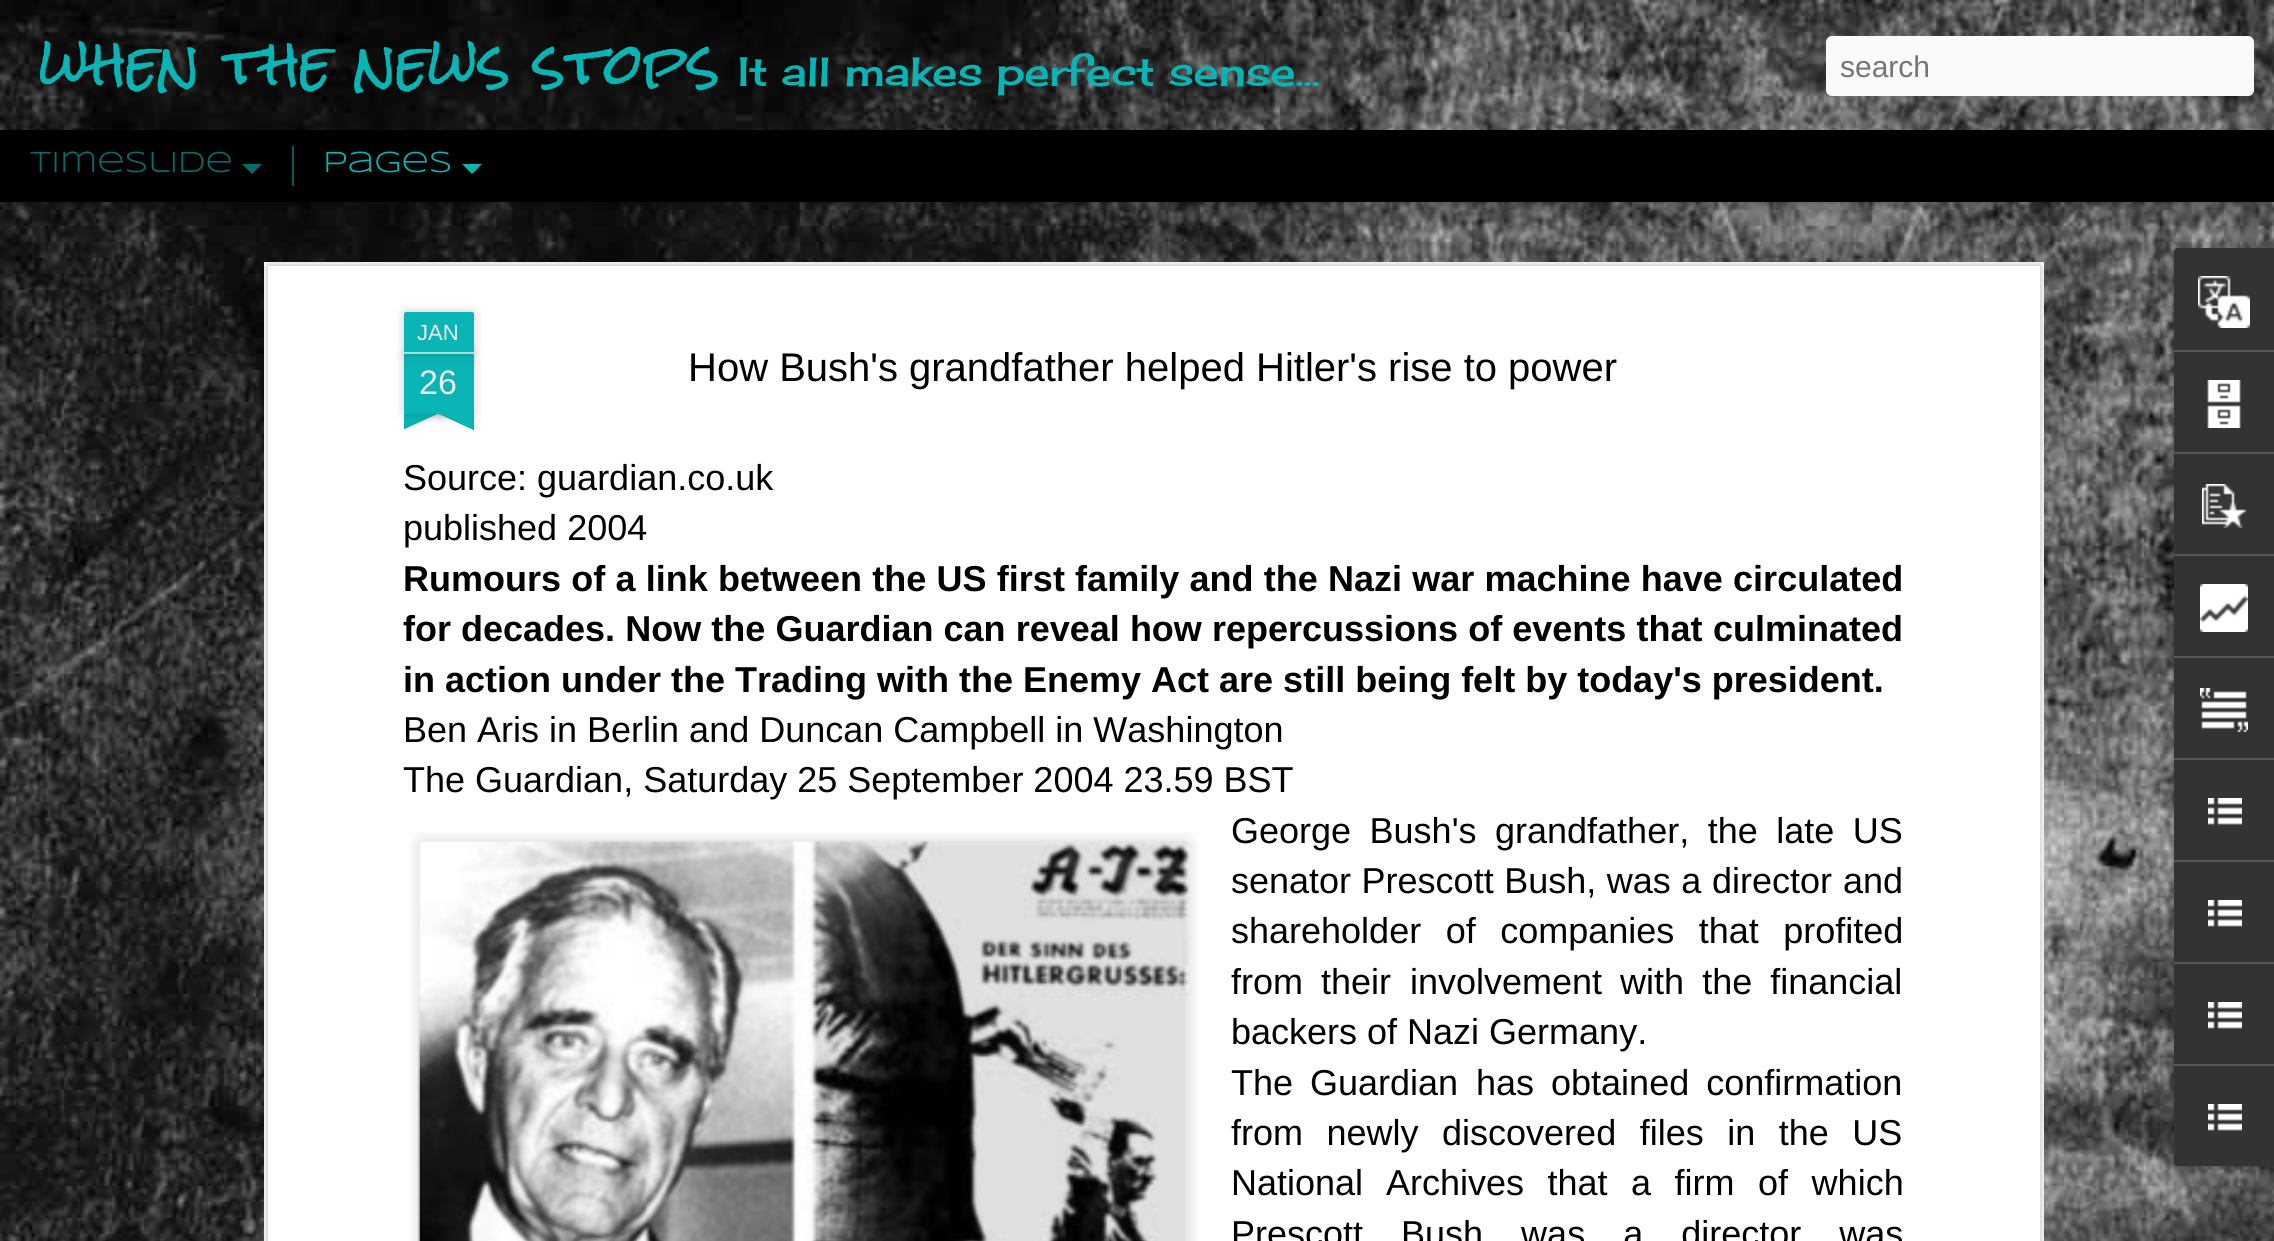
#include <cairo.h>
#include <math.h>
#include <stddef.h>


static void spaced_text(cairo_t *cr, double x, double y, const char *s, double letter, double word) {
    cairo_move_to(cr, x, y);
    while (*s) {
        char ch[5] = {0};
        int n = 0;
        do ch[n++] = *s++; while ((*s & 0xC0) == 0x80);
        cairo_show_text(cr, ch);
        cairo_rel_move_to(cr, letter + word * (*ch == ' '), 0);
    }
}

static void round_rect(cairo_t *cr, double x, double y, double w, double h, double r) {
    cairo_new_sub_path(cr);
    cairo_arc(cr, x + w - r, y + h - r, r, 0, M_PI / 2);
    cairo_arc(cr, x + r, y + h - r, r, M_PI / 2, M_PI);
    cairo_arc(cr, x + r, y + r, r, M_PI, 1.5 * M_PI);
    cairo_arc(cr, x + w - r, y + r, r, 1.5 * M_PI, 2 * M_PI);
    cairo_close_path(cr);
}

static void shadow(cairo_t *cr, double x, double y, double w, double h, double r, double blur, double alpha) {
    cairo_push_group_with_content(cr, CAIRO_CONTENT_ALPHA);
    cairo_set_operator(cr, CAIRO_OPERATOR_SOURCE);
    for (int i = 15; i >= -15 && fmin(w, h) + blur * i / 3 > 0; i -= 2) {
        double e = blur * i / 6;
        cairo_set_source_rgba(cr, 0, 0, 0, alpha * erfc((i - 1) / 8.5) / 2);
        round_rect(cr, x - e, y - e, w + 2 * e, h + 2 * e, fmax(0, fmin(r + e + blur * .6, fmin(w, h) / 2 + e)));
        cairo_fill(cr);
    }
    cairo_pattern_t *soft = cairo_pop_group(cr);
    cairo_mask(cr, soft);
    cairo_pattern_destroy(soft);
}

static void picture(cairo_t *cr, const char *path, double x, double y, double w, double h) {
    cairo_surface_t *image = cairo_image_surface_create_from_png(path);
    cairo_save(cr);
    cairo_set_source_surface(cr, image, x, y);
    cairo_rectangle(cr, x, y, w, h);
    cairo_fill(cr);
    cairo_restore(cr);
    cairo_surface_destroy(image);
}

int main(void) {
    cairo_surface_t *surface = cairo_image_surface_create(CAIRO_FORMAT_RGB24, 2274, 1241);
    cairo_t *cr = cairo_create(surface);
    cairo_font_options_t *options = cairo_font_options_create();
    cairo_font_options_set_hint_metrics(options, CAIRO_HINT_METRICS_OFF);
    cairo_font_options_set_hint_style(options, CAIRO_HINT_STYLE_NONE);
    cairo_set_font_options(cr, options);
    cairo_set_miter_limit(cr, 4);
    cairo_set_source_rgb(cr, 0, 0, 0);
    cairo_paint(cr);
    picture(cr, "img2.png", 0, 202, 2274, 1039);
    shadow(cr, 0, 130, 2274, 70, 0, 8, 0.5);
    picture(cr, "img1.png", 0, 0, 2274, 130);
    cairo_save(cr);
    cairo_rectangle(cr, 40, 0, 1764, 130);
    cairo_clip(cr);
    cairo_select_font_face(cr, "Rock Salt", CAIRO_FONT_SLANT_NORMAL, CAIRO_FONT_WEIGHT_NORMAL);
    cairo_set_font_size(cr, 56);
    cairo_set_source_rgb(cr, 0.039, 0.706, 0.706);
    cairo_move_to(cr, 40, 86);
    cairo_show_text(cr, "when the news stops");
    cairo_restore(cr);
    cairo_select_font_face(cr, "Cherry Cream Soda", CAIRO_FONT_SLANT_NORMAL, CAIRO_FONT_WEIGHT_NORMAL);
    cairo_set_font_size(cr, 40);
    cairo_set_source_rgb(cr, 0.039, 0.706, 0.706);
    cairo_move_to(cr, 738, 86);
    cairo_show_text(cr, "It all makes perfect sense...");
    cairo_set_source_rgb(cr, 0.98, 0.98, 0.98);
    round_rect(cr, 1826, 36, 428, 60, 6);
    cairo_fill(cr);
    cairo_select_font_face(cr, "Liberation Sans", CAIRO_FONT_SLANT_NORMAL, CAIRO_FONT_WEIGHT_NORMAL);
    cairo_set_font_size(cr, 30);
    cairo_set_source_rgb(cr, 0.459, 0.459, 0.459);
    cairo_move_to(cr, 1840, 77);
    cairo_show_text(cr, "search");
    cairo_select_font_face(cr, "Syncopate", CAIRO_FONT_SLANT_NORMAL, CAIRO_FONT_WEIGHT_NORMAL);
    cairo_set_source_rgb(cr, 0.024, 0.424, 0.424);
    cairo_move_to(cr, 30, 172);
    cairo_show_text(cr, "Timeslide");
    cairo_new_path(cr);
    cairo_move_to(cr, 242, 164);
    cairo_line_to(cr, 262, 164);
    cairo_line_to(cr, 252, 174);
    cairo_close_path(cr);
    cairo_fill(cr);
    cairo_set_source_rgb(cr, 0.02, 0.353, 0.353);
    cairo_rectangle(cr, 292, 146, 2, 40);
    cairo_fill(cr);
    cairo_set_source_rgb(cr, 0.039, 0.706, 0.706);
    cairo_move_to(cr, 323, 172);
    cairo_show_text(cr, "Pages");
    cairo_new_path(cr);
    cairo_move_to(cr, 462, 164);
    cairo_line_to(cr, 482, 164);
    cairo_line_to(cr, 472, 174);
    cairo_close_path(cr);
    cairo_fill(cr);
    cairo_set_source_rgb(cr, 1, 1, 1);
    cairo_rectangle(cr, 264, 262, 1780, 979);
    cairo_fill(cr);
    picture(cr, "img3.png", 264, 262, 1780, 979);
    cairo_set_source_rgb(cr, 0, 0, 0);
    shadow(cr, 404, 354, 70, 60, 0, 5, 0.2);
    cairo_set_source_rgb(cr, 0.039, 0.706, 0.706);
    cairo_rectangle(cr, 404, 354, 70, 60);
    cairo_fill(cr);
    cairo_set_source_rgb(cr, 0, 0, 0);
    shadow(cr, 404, 312, 70, 42, 2, 5, 0.2);
    cairo_set_source_rgb(cr, 0.039, 0.706, 0.706);
    cairo_new_path(cr);
    cairo_move_to(cr, 406, 312);
    cairo_line_to(cr, 472, 312);
    cairo_curve_to(cr, 473, 312, 474, 313, 474, 314);
    cairo_line_to(cr, 474, 354);
    cairo_line_to(cr, 404, 354);
    cairo_line_to(cr, 404, 314);
    cairo_curve_to(cr, 404, 313, 405, 312, 406, 312);
    cairo_close_path(cr);
    cairo_fill(cr);
    cairo_set_source_rgb(cr, 0.616, 0.882, 0.882);
    cairo_rectangle(cr, 404, 352, 70, 2);
    cairo_fill(cr);
    cairo_select_font_face(cr, "Liberation Sans", CAIRO_FONT_SLANT_NORMAL, CAIRO_FONT_WEIGHT_NORMAL);
    cairo_set_font_size(cr, 22);
    cairo_set_source_rgb(cr, 0.933, 0.933, 0.933);
    cairo_move_to(cr, 417, 340);
    cairo_show_text(cr, "JAN");
    cairo_set_font_size(cr, 34);
    cairo_move_to(cr, 419, 394);
    cairo_show_text(cr, "26");
    cairo_save(cr);
    cairo_rectangle(cr, 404, 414, 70, 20);
    cairo_clip(cr);
    cairo_set_source_rgb(cr, 0, 0, 0);
    shadow(cr, 386, 394, 100, 20, 0, 5, 0.2);
    cairo_restore(cr);
    cairo_save(cr);
    cairo_rectangle(cr, 404, 414, 70, 20);
    cairo_clip(cr);
    cairo_set_source_rgb(cr, 0.039, 0.706, 0.706);
    cairo_new_path(cr);
    cairo_move_to(cr, 385, 416);
    cairo_line_to(cr, 476, 374);
    cairo_line_to(cr, 485, 392);
    cairo_line_to(cr, 394, 434);
    cairo_close_path(cr);
    cairo_fill(cr);
    cairo_restore(cr);
    cairo_save(cr);
    cairo_rectangle(cr, 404, 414, 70, 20);
    cairo_clip(cr);
    cairo_set_source_rgb(cr, 0, 0, 0);
    shadow(cr, 392, 394, 100, 20, 0, 5, 0.2);
    cairo_restore(cr);
    cairo_save(cr);
    cairo_rectangle(cr, 404, 414, 70, 20);
    cairo_clip(cr);
    cairo_set_source_rgb(cr, 0.039, 0.706, 0.706);
    cairo_new_path(cr);
    cairo_move_to(cr, 400, 374);
    cairo_line_to(cr, 491, 416);
    cairo_line_to(cr, 482, 434);
    cairo_line_to(cr, 391, 392);
    cairo_close_path(cr);
    cairo_fill(cr);
    cairo_restore(cr);
    cairo_set_font_size(cr, 40);
    cairo_set_source_rgb(cr, 0, 0, 0);
    cairo_move_to(cr, 688, 381);
    cairo_show_text(cr, "How Bush's grandfather helped Hitler's rise to power");
    cairo_set_font_size(cr, 36);
    cairo_move_to(cr, 403, 490);
    cairo_show_text(cr, "Source: guardian.co.uk");
    cairo_move_to(cr, 403, 540);
    cairo_show_text(cr, "published 2004");
    cairo_select_font_face(cr, "Liberation Sans", CAIRO_FONT_SLANT_NORMAL, CAIRO_FONT_WEIGHT_BOLD);
    spaced_text(cr, 403, 591, "Rumours of a link between the US first family and the Nazi war machine have circulated", 0, 0.25);
    cairo_move_to(cr, 403, 641);
    cairo_show_text(cr, "for");
    spaced_text(cr, 461, 641, "decades. Now the Guardian can reveal how repercussions of events that", 0, 0.1);
    cairo_move_to(cr, 1713, 641);
    cairo_show_text(cr, "culminated");
    cairo_move_to(cr, 403, 692);
    cairo_show_text(cr, "in action under the Trading with the Enemy Act are still being felt by today's president.");
    cairo_select_font_face(cr, "Liberation Sans", CAIRO_FONT_SLANT_NORMAL, CAIRO_FONT_WEIGHT_NORMAL);
    cairo_move_to(cr, 403, 742);
    cairo_show_text(cr, "Ben Aris in Berlin and Duncan Campbell in Washington");
    cairo_move_to(cr, 403, 792);
    cairo_show_text(cr, "The Guardian, Saturday 25 September 2004 23.59 BST");
    picture(cr, "img4.png", 410, 832, 788, 409);
    picture(cr, "img5.png", 417, 840, 773, 401);
    spaced_text(cr, 1231, 843, "George Bush's grandfather, the late US", 0, 8.5);
    spaced_text(cr, 1231, 893, "senator Prescott Bush, was a", 0, 0.5);
    spaced_text(cr, 1712, 893, "director and", 0, 1);
    spaced_text(cr, 1231, 943, "shareholder of companies that profited", 0, 14.5);
    spaced_text(cr, 1231, 994, "from their", 0, 8);
    spaced_text(cr, 1410, 994, "involvement with the financial", 0, 8);
    cairo_move_to(cr, 1231, 1044);
    cairo_show_text(cr, "backers of Nazi Germany.");
    spaced_text(cr, 1231, 1095, "The Guardian", 0, 7);
    spaced_text(cr, 1476, 1095, "has obtained confirmation", 0, 7);
    spaced_text(cr, 1231, 1145, "from newly discovered files in the US", 0, 13.5);
    cairo_move_to(cr, 1231, 1195);
    cairo_show_text(cr, "National");
    spaced_text(cr, 1386, 1195, "Archives that a firm of which", 0, 13.5);
    spaced_text(cr, 1231, 1246, "Prescott Bush was a director was", 0, 28);
    cairo_set_source_rgb(cr, 0, 0, 0);
    shadow(cr, 2174, 250, 100, 918, 4, 3, 0.3);
    cairo_set_source_rgb(cr, 0.2, 0.2, 0.2);
    cairo_new_path(cr);
    cairo_move_to(cr, 2178, 248);
    cairo_line_to(cr, 2274, 248);
    cairo_line_to(cr, 2274, 1166);
    cairo_line_to(cr, 2178, 1166);
    cairo_curve_to(cr, 2176, 1166, 2174, 1164, 2174, 1162);
    cairo_line_to(cr, 2174, 252);
    cairo_curve_to(cr, 2174, 250, 2176, 248, 2178, 248);
    cairo_close_path(cr);
    cairo_fill(cr);
    cairo_new_path(cr);
    cairo_move_to(cr, 2178, 248);
    cairo_line_to(cr, 2274, 248);
    cairo_line_to(cr, 2274, 350);
    cairo_line_to(cr, 2174, 350);
    cairo_line_to(cr, 2174, 252);
    cairo_curve_to(cr, 2174, 250, 2176, 248, 2178, 248);
    cairo_close_path(cr);
    cairo_fill(cr);
    picture(cr, "img6.png", 2198, 276, 52, 52);
    cairo_set_source_rgb(cr, 0.345, 0.345, 0.345);
    cairo_rectangle(cr, 2174, 350, 100, 2);
    cairo_fill(cr);
    picture(cr, "img7.png", 2207, 380, 34, 48);
    cairo_rectangle(cr, 2174, 452, 100, 2);
    cairo_fill(cr);
    picture(cr, "img8.png", 2202, 484, 44, 44);
    cairo_rectangle(cr, 2174, 554, 100, 2);
    cairo_fill(cr);
    picture(cr, "img9.png", 2200, 584, 48, 48);
    cairo_rectangle(cr, 2174, 656, 100, 2);
    cairo_fill(cr);
    picture(cr, "img10.png", 2200, 688, 48, 44);
    cairo_rectangle(cr, 2174, 758, 100, 2);
    cairo_fill(cr);
    picture(cr, "img11.png", 2208, 798, 34, 27);
    cairo_rectangle(cr, 2174, 860, 100, 2);
    cairo_fill(cr);
    picture(cr, "img11.png", 2208, 900, 34, 27);
    cairo_rectangle(cr, 2174, 962, 100, 2);
    cairo_fill(cr);
    picture(cr, "img11.png", 2208, 1002, 34, 27);
    cairo_set_source_rgb(cr, 0.2, 0.2, 0.2);
    cairo_new_path(cr);
    cairo_move_to(cr, 2174, 1064);
    cairo_line_to(cr, 2274, 1064);
    cairo_line_to(cr, 2274, 1166);
    cairo_line_to(cr, 2178, 1166);
    cairo_curve_to(cr, 2176, 1166, 2174, 1164, 2174, 1162);
    cairo_close_path(cr);
    cairo_fill(cr);
    cairo_set_source_rgb(cr, 0.345, 0.345, 0.345);
    cairo_rectangle(cr, 2174, 1064, 100, 2);
    cairo_fill(cr);
    picture(cr, "img11.png", 2208, 1104, 34, 27);
    cairo_surface_write_to_png(surface, "page.png");
    cairo_font_options_destroy(options);
    cairo_destroy(cr);
    cairo_surface_destroy(surface);
    return 0;
}
